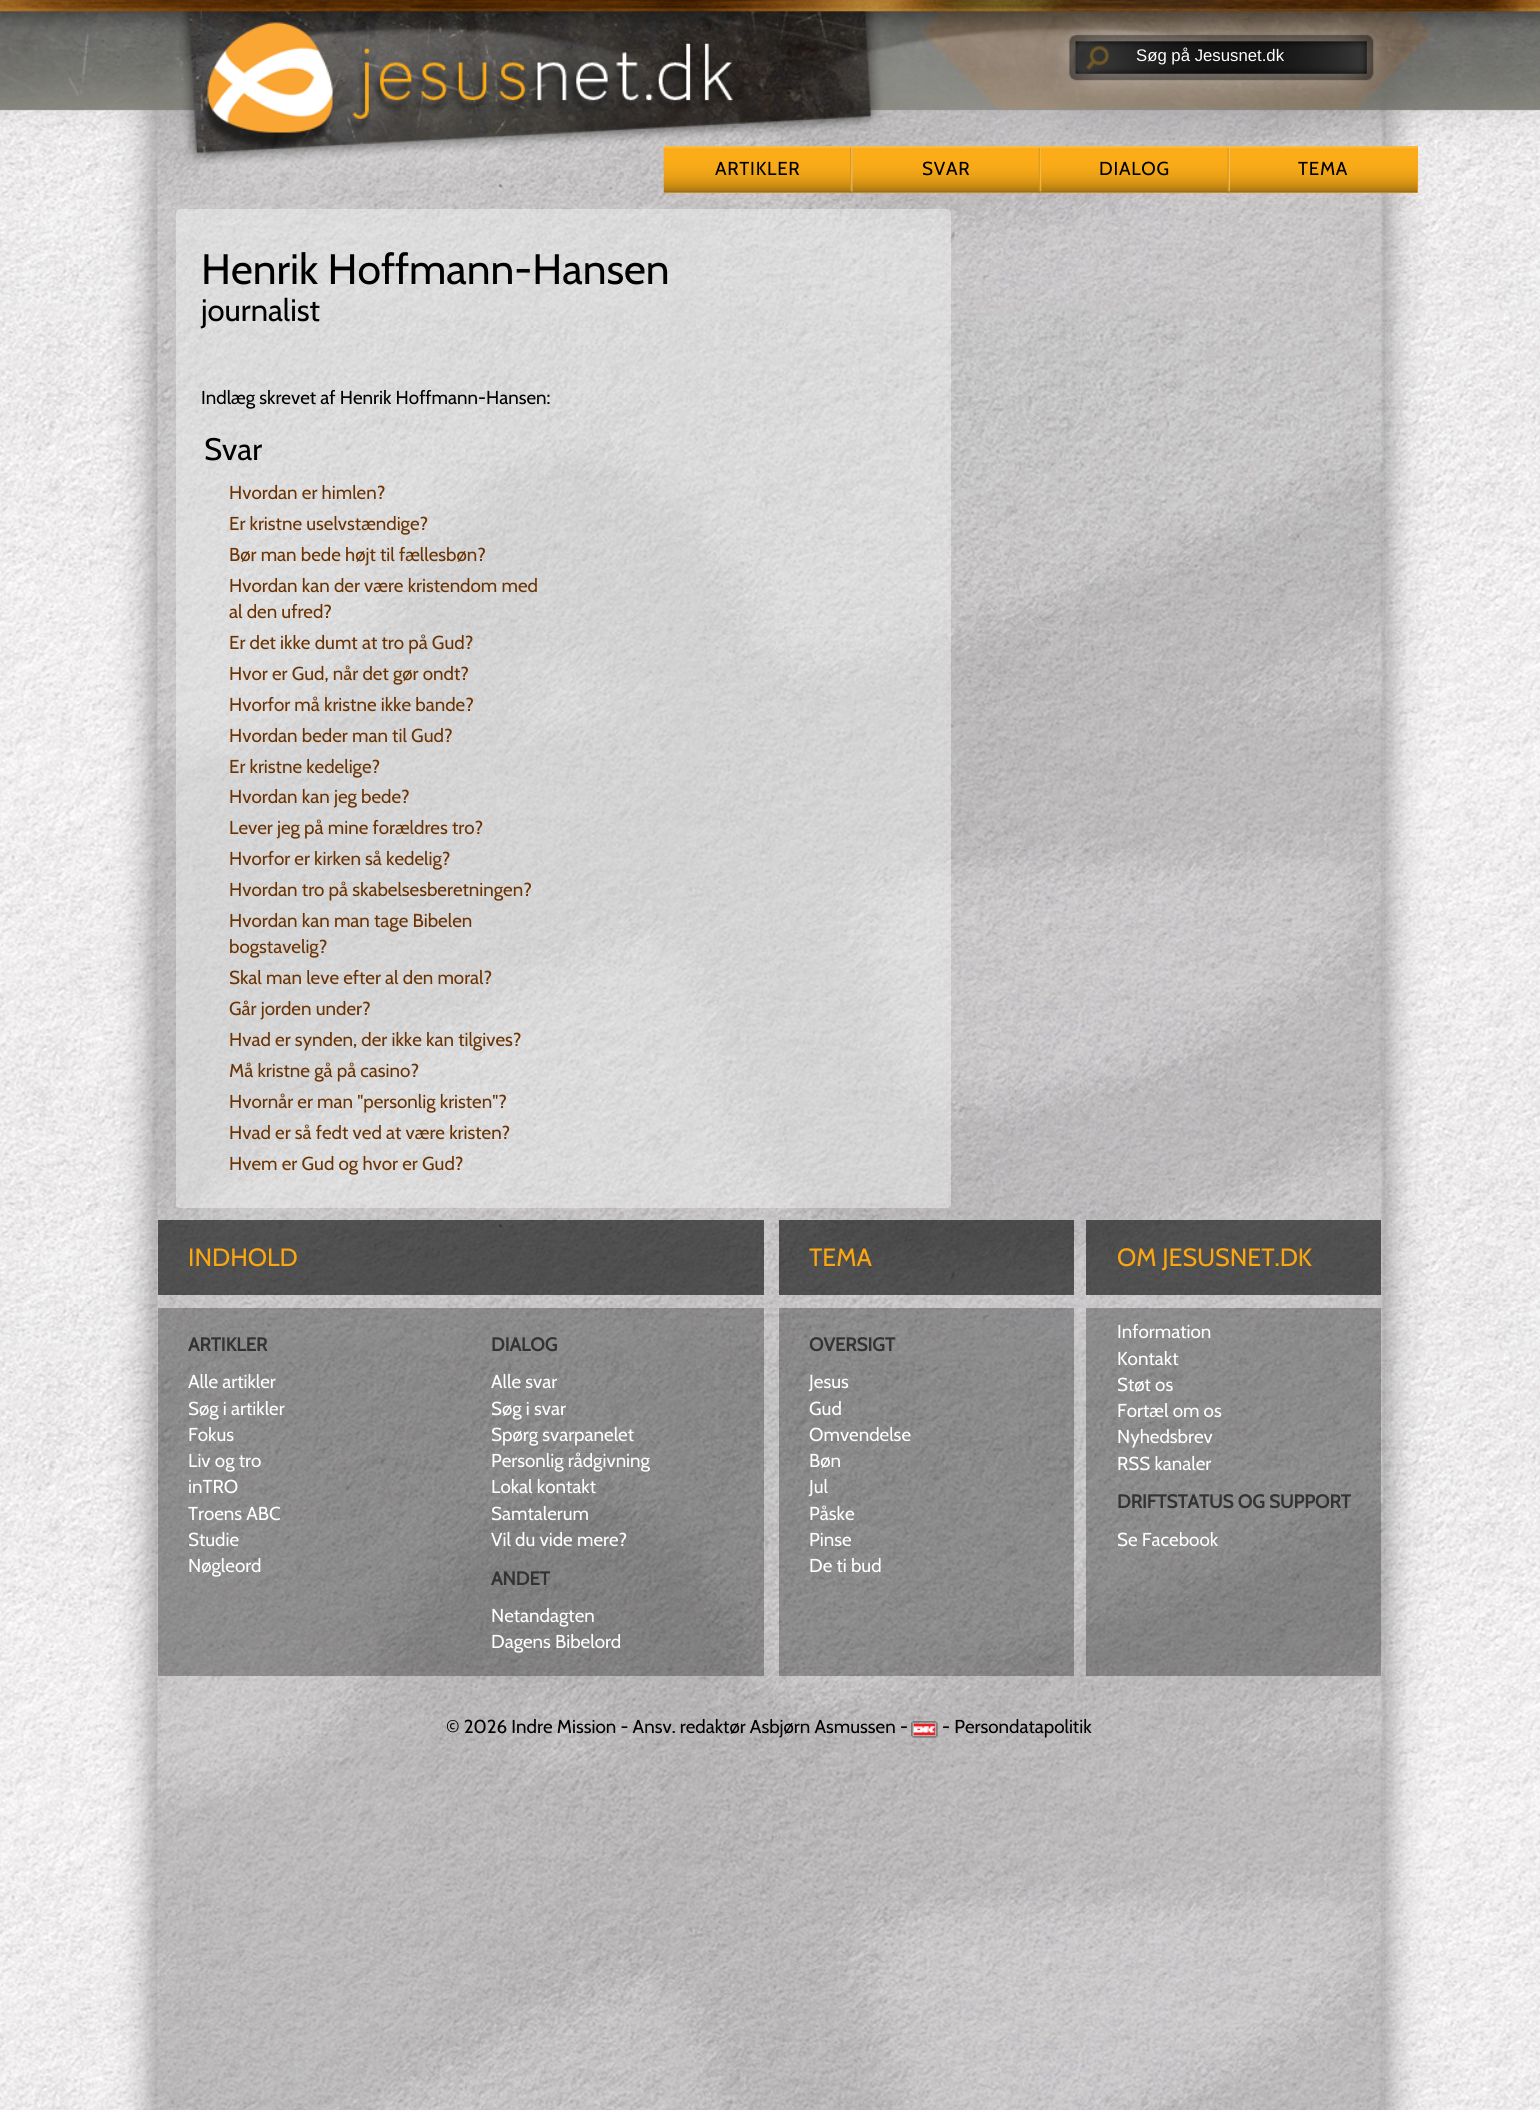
#include <cairo.h>
#include <math.h>
#include <stddef.h>


static void spaced_text(cairo_t *cr, double x, double y, const char *s, double letter, double word) {
    cairo_move_to(cr, x, y);
    while (*s) {
        char ch[5] = {0};
        int n = 0;
        do ch[n++] = *s++; while ((*s & 0xC0) == 0x80);
        cairo_show_text(cr, ch);
        cairo_rel_move_to(cr, letter + word * (*ch == ' '), 0);
    }
}

static void round_rect(cairo_t *cr, double x, double y, double w, double h, double r) {
    cairo_new_sub_path(cr);
    cairo_arc(cr, x + w - r, y + h - r, r, 0, M_PI / 2);
    cairo_arc(cr, x + r, y + h - r, r, M_PI / 2, M_PI);
    cairo_arc(cr, x + r, y + r, r, M_PI, 1.5 * M_PI);
    cairo_arc(cr, x + w - r, y + r, r, 1.5 * M_PI, 2 * M_PI);
    cairo_close_path(cr);
}

static void picture(cairo_t *cr, const char *path, double x, double y, double w, double h) {
    cairo_surface_t *image = cairo_image_surface_create_from_png(path);
    cairo_save(cr);
    cairo_set_source_surface(cr, image, x, y);
    cairo_rectangle(cr, x, y, w, h);
    cairo_fill(cr);
    cairo_restore(cr);
    cairo_surface_destroy(image);
}

int main(void) {
    cairo_surface_t *surface = cairo_image_surface_create(CAIRO_FORMAT_RGB24, 1540, 2110);
    cairo_t *cr = cairo_create(surface);
    cairo_font_options_t *options = cairo_font_options_create();
    cairo_font_options_set_hint_metrics(options, CAIRO_HINT_METRICS_OFF);
    cairo_font_options_set_hint_style(options, CAIRO_HINT_STYLE_NONE);
    cairo_set_font_options(cr, options);
    cairo_set_miter_limit(cr, 4);
    cairo_set_source_rgb(cr, 1, 1, 1);
    cairo_paint(cr);
    picture(cr, "img1.png", 0, 11, 1540, 2099);
    picture(cr, "img2.png", 0, 0, 1540, 173);
    picture(cr, "img3.png", 200, 22, 533, 127);
    picture(cr, "img4.png", 1086, 46, 23, 24);
    cairo_select_font_face(cr, "Liberation Sans", CAIRO_FONT_SLANT_NORMAL, CAIRO_FONT_WEIGHT_NORMAL);
    cairo_set_font_size(cr, 16.75);
    cairo_set_source_rgb(cr, 1, 1, 1);
    cairo_move_to(cr, 1136, 61);
    cairo_show_text(cr, "Søg på Jesusnet.dk");
    cairo_set_source_rgb(cr, 1, 0.659, 0.063);
    cairo_rectangle(cr, 664, 146, 187, 47);
    cairo_fill(cr);
    picture(cr, "img5.png", 663, 146, 189, 47);
    cairo_select_font_face(cr, "Cabin", CAIRO_FONT_SLANT_NORMAL, CAIRO_FONT_WEIGHT_NORMAL);
    cairo_set_font_size(cr, 18.75);
    cairo_set_source_rgb(cr, 0, 0, 0);
    spaced_text(cr, 715, 175, "ARTIKLER", 0.75, 0);
    picture(cr, "img6.png", 850, 146, 3, 47);
    cairo_set_source_rgb(cr, 1, 0.659, 0.063);
    cairo_rectangle(cr, 853, 146, 187, 47);
    cairo_fill(cr);
    picture(cr, "img7.png", 852, 146, 188, 47);
    cairo_set_source_rgb(cr, 0, 0, 0);
    spaced_text(cr, 922, 175, "SVAR", 0.75, 0);
    picture(cr, "img8.png", 1038, 146, 3, 47);
    cairo_set_source_rgb(cr, 1, 0.659, 0.063);
    cairo_rectangle(cr, 1041, 146, 188, 47);
    cairo_fill(cr);
    picture(cr, "img9.png", 1041, 146, 188, 47);
    cairo_set_source_rgb(cr, 0, 0, 0);
    spaced_text(cr, 1099, 175, "DIALOG", 0.75, 0);
    picture(cr, "img10.png", 1227, 146, 3, 47);
    cairo_set_source_rgb(cr, 1, 0.659, 0.063);
    cairo_rectangle(cr, 1230, 146, 188, 47);
    cairo_fill(cr);
    picture(cr, "img11.png", 1230, 146, 188, 47);
    cairo_set_source_rgb(cr, 0, 0, 0);
    spaced_text(cr, 1298, 175, "TEMA", 0.75, 0);
    cairo_set_source_rgba(cr, 1, 1, 1, 0.4);
    round_rect(cr, 176, 209, 775, 999, 4);
    cairo_fill(cr);
    cairo_set_font_size(cr, 42.5);
    cairo_set_source_rgb(cr, 0, 0, 0);
    cairo_move_to(cr, 201, 284);
    cairo_show_text(cr, "Henrik Hoffmann-Hansen");
    cairo_set_font_size(cr, 31);
    cairo_move_to(cr, 201, 321);
    cairo_show_text(cr, "journalist");
    cairo_set_font_size(cr, 18.75);
    cairo_move_to(cr, 201, 404);
    cairo_show_text(cr, "Indlæg skrevet af Henrik Hoffmann-Hansen:");
    cairo_set_font_size(cr, 31);
    cairo_move_to(cr, 204, 460);
    cairo_show_text(cr, "Svar");
    cairo_set_font_size(cr, 18.75);
    cairo_set_source_rgb(cr, 0.416, 0.2, 0.012);
    cairo_move_to(cr, 229, 499);
    cairo_show_text(cr, "Hvordan er himlen?");
    cairo_move_to(cr, 229, 530);
    cairo_show_text(cr, "Er kristne uselvstændige?");
    cairo_move_to(cr, 229, 561);
    cairo_show_text(cr, "Bør man bede højt til fællesbøn?");
    cairo_move_to(cr, 229, 592);
    cairo_show_text(cr, "Hvordan kan der være kristendom med");
    cairo_move_to(cr, 229, 618);
    cairo_show_text(cr, "al den ufred?");
    cairo_move_to(cr, 229, 649);
    cairo_show_text(cr, "Er det ikke dumt at tro på Gud?");
    cairo_move_to(cr, 229, 680);
    cairo_show_text(cr, "Hvor er Gud, når det gør ondt?");
    cairo_move_to(cr, 229, 711);
    cairo_show_text(cr, "Hvorfor må kristne ikke bande?");
    cairo_move_to(cr, 229, 742);
    cairo_show_text(cr, "Hvordan beder man til Gud?");
    cairo_move_to(cr, 229, 773);
    cairo_show_text(cr, "Er kristne kedelige?");
    cairo_move_to(cr, 229, 803);
    cairo_show_text(cr, "Hvordan kan jeg bede?");
    cairo_move_to(cr, 229, 834);
    cairo_show_text(cr, "Lever jeg på mine forældres tro?");
    cairo_move_to(cr, 229, 865);
    cairo_show_text(cr, "Hvorfor er kirken så kedelig?");
    cairo_move_to(cr, 229, 896);
    cairo_show_text(cr, "Hvordan tro på skabelsesberetningen?");
    cairo_move_to(cr, 229, 927);
    cairo_show_text(cr, "Hvordan kan man tage Bibelen");
    cairo_move_to(cr, 229, 953);
    cairo_show_text(cr, "bogstavelig?");
    cairo_move_to(cr, 229, 984);
    cairo_show_text(cr, "Skal man leve efter al den moral?");
    cairo_move_to(cr, 229, 1015);
    cairo_show_text(cr, "Går jorden under?");
    cairo_move_to(cr, 229, 1046);
    cairo_show_text(cr, "Hvad er synden, der ikke kan tilgives?");
    cairo_move_to(cr, 229, 1077);
    cairo_show_text(cr, "Må kristne gå på casino?");
    cairo_move_to(cr, 229, 1108);
    cairo_show_text(cr, "Hvornår er man \"personlig kristen\"?");
    cairo_move_to(cr, 229, 1139);
    cairo_show_text(cr, "Hvad er så fedt ved at være kristen?");
    cairo_move_to(cr, 229, 1170);
    cairo_show_text(cr, "Hvem er Gud og hvor er Gud?");
    cairo_set_source_rgba(cr, 0.012, 0.012, 0.012, 0.6);
    cairo_rectangle(cr, 158, 1220, 606, 75);
    cairo_fill(cr);
    cairo_set_font_size(cr, 25);
    cairo_set_source_rgb(cr, 0.984, 0.655, 0.071);
    cairo_move_to(cr, 188, 1266);
    cairo_show_text(cr, "INDHOLD");
    cairo_set_source_rgba(cr, 0.024, 0.024, 0.024, 0.3);
    cairo_rectangle(cr, 158, 1308, 302, 368);
    cairo_fill(cr);
    cairo_select_font_face(cr, "Cabin", CAIRO_FONT_SLANT_NORMAL, CAIRO_FONT_WEIGHT_BOLD);
    cairo_set_font_size(cr, 18.75);
    cairo_set_source_rgb(cr, 0.2, 0.2, 0.2);
    cairo_move_to(cr, 188, 1351);
    cairo_show_text(cr, "ARTIKLER");
    cairo_select_font_face(cr, "Cabin", CAIRO_FONT_SLANT_NORMAL, CAIRO_FONT_WEIGHT_NORMAL);
    cairo_set_source_rgb(cr, 1, 1, 1);
    cairo_move_to(cr, 188, 1388);
    cairo_show_text(cr, "Alle artikler");
    cairo_move_to(cr, 188, 1415);
    cairo_show_text(cr, "Søg i artikler");
    cairo_move_to(cr, 188, 1441);
    cairo_show_text(cr, "Fokus");
    cairo_move_to(cr, 188, 1467);
    cairo_show_text(cr, "Liv og tro");
    cairo_move_to(cr, 188, 1493);
    cairo_show_text(cr, "inTRO");
    cairo_move_to(cr, 188, 1520);
    cairo_show_text(cr, "Troens ABC");
    cairo_move_to(cr, 188, 1546);
    cairo_show_text(cr, "Studie");
    cairo_move_to(cr, 188, 1572);
    cairo_show_text(cr, "Nøgleord");
    cairo_set_source_rgba(cr, 0.024, 0.024, 0.024, 0.3);
    cairo_rectangle(cr, 460, 1308, 304, 368);
    cairo_fill(cr);
    cairo_select_font_face(cr, "Cabin", CAIRO_FONT_SLANT_NORMAL, CAIRO_FONT_WEIGHT_BOLD);
    cairo_set_source_rgb(cr, 0.2, 0.2, 0.2);
    cairo_move_to(cr, 491, 1351);
    cairo_show_text(cr, "DIALOG");
    cairo_select_font_face(cr, "Cabin", CAIRO_FONT_SLANT_NORMAL, CAIRO_FONT_WEIGHT_NORMAL);
    cairo_set_source_rgb(cr, 1, 1, 1);
    cairo_move_to(cr, 491, 1388);
    cairo_show_text(cr, "Alle svar");
    cairo_move_to(cr, 491, 1415);
    cairo_show_text(cr, "Søg i svar");
    cairo_move_to(cr, 491, 1441);
    cairo_show_text(cr, "Spørg svarpanelet");
    cairo_move_to(cr, 491, 1467);
    cairo_show_text(cr, "Personlig rådgivning");
    cairo_move_to(cr, 491, 1493);
    cairo_show_text(cr, "Lokal kontakt");
    cairo_move_to(cr, 491, 1520);
    cairo_show_text(cr, "Samtalerum");
    cairo_move_to(cr, 491, 1546);
    cairo_show_text(cr, "Vil du vide mere?");
    cairo_select_font_face(cr, "Cabin", CAIRO_FONT_SLANT_NORMAL, CAIRO_FONT_WEIGHT_BOLD);
    cairo_set_source_rgb(cr, 0.2, 0.2, 0.2);
    cairo_move_to(cr, 491, 1585);
    cairo_show_text(cr, "ANDET");
    cairo_select_font_face(cr, "Cabin", CAIRO_FONT_SLANT_NORMAL, CAIRO_FONT_WEIGHT_NORMAL);
    cairo_set_source_rgb(cr, 1, 1, 1);
    cairo_move_to(cr, 491, 1622);
    cairo_show_text(cr, "Netandagten");
    cairo_move_to(cr, 491, 1648);
    cairo_show_text(cr, "Dagens Bibelord");
    cairo_set_source_rgba(cr, 0.012, 0.012, 0.012, 0.6);
    cairo_rectangle(cr, 779, 1220, 295, 75);
    cairo_fill(cr);
    cairo_set_font_size(cr, 25);
    cairo_set_source_rgb(cr, 0.984, 0.655, 0.071);
    cairo_move_to(cr, 809, 1266);
    cairo_show_text(cr, "TEMA");
    cairo_set_source_rgba(cr, 0.024, 0.024, 0.024, 0.3);
    cairo_rectangle(cr, 779, 1308, 295, 368);
    cairo_fill(cr);
    cairo_select_font_face(cr, "Cabin", CAIRO_FONT_SLANT_NORMAL, CAIRO_FONT_WEIGHT_BOLD);
    cairo_set_font_size(cr, 18.75);
    cairo_set_source_rgb(cr, 0.2, 0.2, 0.2);
    cairo_move_to(cr, 809, 1351);
    cairo_show_text(cr, "OVERSIGT");
    cairo_select_font_face(cr, "Cabin", CAIRO_FONT_SLANT_NORMAL, CAIRO_FONT_WEIGHT_NORMAL);
    cairo_set_source_rgb(cr, 1, 1, 1);
    cairo_move_to(cr, 809, 1388);
    cairo_show_text(cr, "Jesus");
    cairo_move_to(cr, 809, 1415);
    cairo_show_text(cr, "Gud");
    cairo_move_to(cr, 809, 1441);
    cairo_show_text(cr, "Omvendelse");
    cairo_move_to(cr, 809, 1467);
    cairo_show_text(cr, "Bøn");
    cairo_move_to(cr, 809, 1493);
    cairo_show_text(cr, "Jul");
    cairo_move_to(cr, 809, 1520);
    cairo_show_text(cr, "Påske");
    cairo_move_to(cr, 809, 1546);
    cairo_show_text(cr, "Pinse");
    cairo_move_to(cr, 809, 1572);
    cairo_show_text(cr, "De ti bud");
    cairo_set_source_rgba(cr, 0.012, 0.012, 0.012, 0.6);
    cairo_rectangle(cr, 1086, 1220, 295, 75);
    cairo_fill(cr);
    cairo_set_font_size(cr, 25);
    cairo_set_source_rgb(cr, 0.984, 0.655, 0.071);
    cairo_move_to(cr, 1117, 1266);
    cairo_show_text(cr, "OM JESUSNET.DK");
    cairo_set_source_rgba(cr, 0.024, 0.024, 0.024, 0.3);
    cairo_rectangle(cr, 1086, 1308, 295, 368);
    cairo_fill(cr);
    cairo_set_font_size(cr, 18.75);
    cairo_set_source_rgb(cr, 1, 1, 1);
    cairo_move_to(cr, 1117, 1338);
    cairo_show_text(cr, "Information");
    cairo_move_to(cr, 1117, 1365);
    cairo_show_text(cr, "Kontakt");
    cairo_move_to(cr, 1117, 1391);
    cairo_show_text(cr, "Støt os");
    cairo_move_to(cr, 1117, 1417);
    cairo_show_text(cr, "Fortæl om os");
    cairo_move_to(cr, 1117, 1443);
    cairo_show_text(cr, "Nyhedsbrev");
    cairo_move_to(cr, 1117, 1470);
    cairo_show_text(cr, "RSS kanaler");
    cairo_select_font_face(cr, "Cabin", CAIRO_FONT_SLANT_NORMAL, CAIRO_FONT_WEIGHT_BOLD);
    cairo_set_source_rgb(cr, 0.2, 0.2, 0.2);
    cairo_move_to(cr, 1117, 1508);
    cairo_show_text(cr, "DRIFTSTATUS OG SUPPORT");
    cairo_select_font_face(cr, "Cabin", CAIRO_FONT_SLANT_NORMAL, CAIRO_FONT_WEIGHT_NORMAL);
    cairo_set_source_rgb(cr, 1, 1, 1);
    cairo_move_to(cr, 1117, 1546);
    cairo_show_text(cr, "Se Facebook");
    cairo_set_source_rgb(cr, 0, 0, 0);
    cairo_move_to(cr, 446, 1733);
    cairo_show_text(cr, "© 2026 Indre Mission - Ansv. redaktør Asbjørn Asmussen -");
    picture(cr, "img12.png", 911, 1721, 27, 17);
    cairo_move_to(cr, 942, 1733);
    cairo_show_text(cr, "- Persondatapolitik");
    cairo_surface_write_to_png(surface, "page.png");
    cairo_font_options_destroy(options);
    cairo_destroy(cr);
    cairo_surface_destroy(surface);
    return 0;
}
